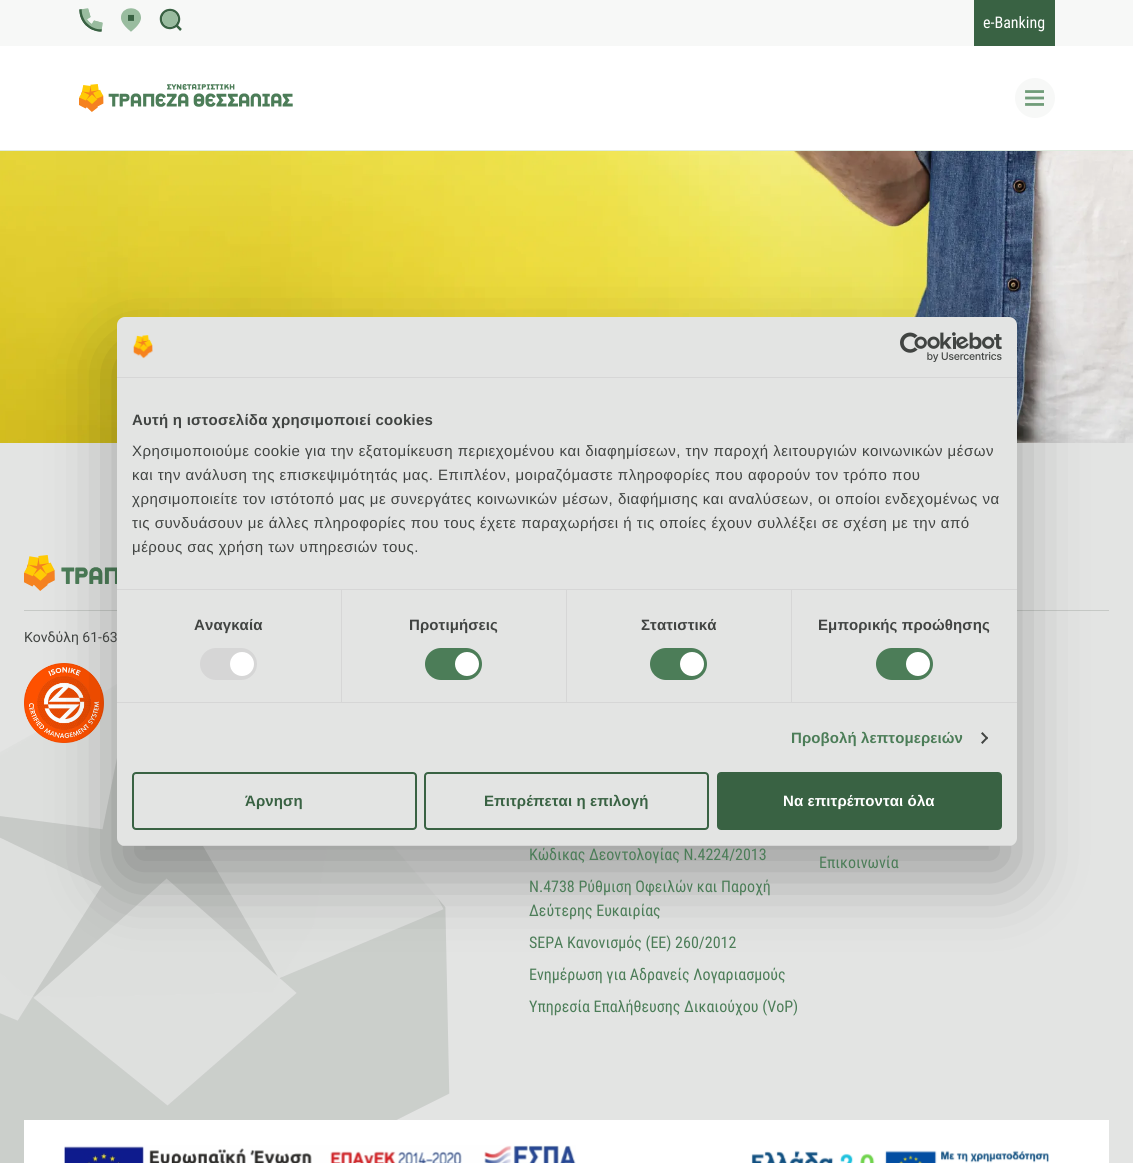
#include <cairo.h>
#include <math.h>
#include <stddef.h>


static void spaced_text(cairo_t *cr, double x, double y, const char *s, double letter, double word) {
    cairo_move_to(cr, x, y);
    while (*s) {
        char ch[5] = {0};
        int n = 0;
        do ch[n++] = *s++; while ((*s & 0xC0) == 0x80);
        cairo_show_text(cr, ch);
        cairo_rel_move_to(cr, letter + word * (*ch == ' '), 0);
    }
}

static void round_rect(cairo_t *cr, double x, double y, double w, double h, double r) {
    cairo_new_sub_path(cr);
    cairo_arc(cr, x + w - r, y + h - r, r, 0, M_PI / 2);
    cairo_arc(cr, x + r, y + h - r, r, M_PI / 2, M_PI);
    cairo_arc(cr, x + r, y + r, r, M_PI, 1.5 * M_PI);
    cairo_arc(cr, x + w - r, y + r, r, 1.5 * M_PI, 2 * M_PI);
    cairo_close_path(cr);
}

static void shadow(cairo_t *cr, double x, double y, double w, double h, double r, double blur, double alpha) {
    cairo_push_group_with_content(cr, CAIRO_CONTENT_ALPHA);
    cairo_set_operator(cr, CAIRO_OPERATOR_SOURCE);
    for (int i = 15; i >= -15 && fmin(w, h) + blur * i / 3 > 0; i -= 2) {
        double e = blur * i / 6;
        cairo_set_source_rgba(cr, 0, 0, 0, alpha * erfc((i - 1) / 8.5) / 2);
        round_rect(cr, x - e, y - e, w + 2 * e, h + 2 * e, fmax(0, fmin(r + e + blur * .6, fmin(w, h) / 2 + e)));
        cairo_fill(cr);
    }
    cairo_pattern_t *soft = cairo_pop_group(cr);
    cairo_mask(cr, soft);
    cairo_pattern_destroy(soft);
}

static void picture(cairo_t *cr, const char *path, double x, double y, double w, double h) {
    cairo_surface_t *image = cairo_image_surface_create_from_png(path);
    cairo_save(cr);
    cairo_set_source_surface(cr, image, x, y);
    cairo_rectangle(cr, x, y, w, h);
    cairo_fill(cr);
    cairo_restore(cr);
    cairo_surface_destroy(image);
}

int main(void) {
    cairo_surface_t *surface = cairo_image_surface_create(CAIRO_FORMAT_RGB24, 1133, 1163);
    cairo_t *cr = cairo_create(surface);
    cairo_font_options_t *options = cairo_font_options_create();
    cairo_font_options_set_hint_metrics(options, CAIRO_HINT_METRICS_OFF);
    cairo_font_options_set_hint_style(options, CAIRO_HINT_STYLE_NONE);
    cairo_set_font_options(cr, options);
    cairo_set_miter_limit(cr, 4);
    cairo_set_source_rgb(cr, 1, 1, 1);
    cairo_paint(cr);
    cairo_set_source_rgb(cr, 0.878, 0.922, 0.878);
    cairo_rectangle(cr, 0, 150, 1133, 1);
    cairo_fill(cr);
    cairo_set_source_rgb(cr, 0.965, 0.969, 0.965);
    cairo_rectangle(cr, 0, 0, 1133, 46);
    cairo_fill(cr);
    picture(cr, "img1.png", 79, 8, 24, 24);
    picture(cr, "img2.png", 121, 8, 20, 24);
    picture(cr, "img3.png", 159, 8, 23, 23);
    cairo_set_source_rgb(cr, 0.224, 0.384, 0.263);
    cairo_rectangle(cr, 974, 0, 81, 46);
    cairo_fill(cr);
    cairo_select_font_face(cr, "Roboto Condensed", CAIRO_FONT_SLANT_NORMAL, CAIRO_FONT_WEIGHT_NORMAL);
    cairo_set_font_size(cr, 16);
    cairo_set_source_rgb(cr, 1, 1, 1);
    cairo_move_to(cr, 983, 28);
    cairo_show_text(cr, "e-Banking");
    picture(cr, "img4.png", 79, 84, 214, 28);
    cairo_set_source_rgb(cr, 0.965, 0.969, 0.965);
    cairo_arc(cr, 1035, 98, 20, 0, 2 * M_PI);
    cairo_fill(cr);
    picture(cr, "img5.png", 1025, 90, 19, 16);
    picture(cr, "img6.png", 0, 151, 1133, 292);
    cairo_set_source_rgb(cr, 0.89, 0.894, 0.89);
    cairo_rectangle(cr, 0, 443, 1133, 720);
    cairo_fill(cr);
    picture(cr, "img9.png", 0, 668, 450, 495);
    cairo_set_source_rgb(cr, 0.776, 0.788, 0.776);
    cairo_rectangle(cr, 24, 610, 93, 1);
    cairo_fill(cr);
    picture(cr, "img10.png", 24, 555, 93, 36);
    picture(cr, "img11.png", 24, 663, 80, 80);
    cairo_rectangle(cr, 1017, 610, 92, 1);
    cairo_fill(cr);
    cairo_set_source_rgb(cr, 0, 0, 0);
    shadow(cr, 117, 349, 900, 529, 8, 34, 0.3);
    cairo_set_source_rgb(cr, 0.89, 0.894, 0.89);
    round_rect(cr, 117, 317, 900, 529, 8);
    cairo_fill(cr);
    cairo_set_source_rgb(cr, 0.839, 0.839, 0.839);
    cairo_rectangle(cr, 117, 377, 900, 1);
    cairo_fill(cr);
    picture(cr, "img7.png", 133, 335, 20, 24);
    picture(cr, "img8.png", 900, 332, 102, 30);
    cairo_rectangle(cr, 117, 589, 900, 1);
    cairo_fill(cr);
    cairo_select_font_face(cr, "Liberation Sans", CAIRO_FONT_SLANT_NORMAL, CAIRO_FONT_WEIGHT_BOLD);
    cairo_set_font_size(cr, 15);
    cairo_set_source_rgb(cr, 0.255, 0.267, 0.259);
    spaced_text(cr, 132, 425, "Αυτή η ιστοσελίδα χρησιμοποιεί cookies", 0.25, 0);
    cairo_select_font_face(cr, "Liberation Sans", CAIRO_FONT_SLANT_NORMAL, CAIRO_FONT_WEIGHT_NORMAL);
    spaced_text(cr, 132, 456, "Χρησιμοποιούμε cookie για την εξατομίκευση περιεχομένου και διαφημίσεων, την παροχή λειτουργιών κοινωνικών μέσων", 0.5, 0);
    spaced_text(cr, 132, 480, "και την ανάλυση της επισκεψιμότητάς μας. Επιπλέον, μοιραζόμαστε πληροφορίες που αφορούν τον τρόπο που", 0.5, 0);
    spaced_text(cr, 132, 504, "χρησιμοποιείτε τον ιστότοπό μας με συνεργάτες κοινωνικών μέσων, διαφήμισης και αναλύσεων, οι οποίοι ενδεχομένως να", 0.5, 0);
    spaced_text(cr, 132, 528, "τις συνδυάσουν με άλλες πληροφορίες που τους έχετε παραχωρήσει ή τις οποίες έχουν συλλέξει σε σχέση με την από", 0.5, 0);
    spaced_text(cr, 132, 552, "μέρους σας χρήση των υπηρεσιών τους.", 0.5, 0);
    cairo_set_source_rgb(cr, 0.839, 0.839, 0.839);
    cairo_rectangle(cr, 117, 702, 900, 1);
    cairo_fill(cr);
    cairo_rectangle(cr, 341, 590, 1, 112);
    cairo_fill(cr);
    cairo_select_font_face(cr, "Liberation Sans", CAIRO_FONT_SLANT_NORMAL, CAIRO_FONT_WEIGHT_BOLD);
    cairo_set_source_rgb(cr, 0.255, 0.267, 0.259);
    spaced_text(cr, 194, 630, "Αναγκαία", 0.1, 0);
    cairo_set_source_rgb(cr, 0.839, 0.839, 0.839);
    round_rect(cr, 200, 648, 57, 32, 16);
    cairo_fill(cr);
    cairo_set_source_rgb(cr, 1, 1, 1);
    cairo_arc(cr, 242, 664, 12, 0, 2 * M_PI);
    cairo_fill(cr);
    cairo_set_source_rgb(cr, 0.839, 0.839, 0.839);
    cairo_rectangle(cr, 566, 590, 1, 112);
    cairo_fill(cr);
    cairo_set_source_rgb(cr, 0.255, 0.267, 0.259);
    spaced_text(cr, 409, 630, "Προτιμήσεις", 0.1, 0);
    cairo_set_source_rgb(cr, 0.298, 0.49, 0.345);
    round_rect(cr, 425, 648, 57, 32, 16);
    cairo_fill(cr);
    cairo_set_source_rgb(cr, 1, 1, 1);
    cairo_arc(cr, 467, 664, 12, 0, 2 * M_PI);
    cairo_fill(cr);
    cairo_set_source_rgb(cr, 0.839, 0.839, 0.839);
    cairo_rectangle(cr, 791, 590, 1, 112);
    cairo_fill(cr);
    cairo_set_source_rgb(cr, 0.255, 0.267, 0.259);
    spaced_text(cr, 641, 630, "Στατιστικά", 0.1, 0);
    cairo_set_source_rgb(cr, 0.298, 0.49, 0.345);
    round_rect(cr, 650, 648, 57, 32, 16);
    cairo_fill(cr);
    cairo_set_source_rgb(cr, 1, 1, 1);
    cairo_arc(cr, 692, 664, 12, 0, 2 * M_PI);
    cairo_fill(cr);
    cairo_set_source_rgb(cr, 0.255, 0.267, 0.259);
    spaced_text(cr, 818, 630, "Εμπορικής προώθησης", 0.1, 0);
    cairo_set_source_rgb(cr, 0.298, 0.49, 0.345);
    round_rect(cr, 876, 648, 57, 32, 16);
    cairo_fill(cr);
    cairo_set_source_rgb(cr, 1, 1, 1);
    cairo_arc(cr, 918, 664, 12, 0, 2 * M_PI);
    cairo_fill(cr);
    cairo_set_source_rgb(cr, 0.298, 0.49, 0.345);
    spaced_text(cr, 791, 743, "Προβολή λεπτομερειών", 0.1, 0);
    cairo_set_source_rgb(cr, 0.255, 0.267, 0.259);
    cairo_new_path(cr);
    cairo_move_to(cr, 982.5, 732);
    cairo_line_to(cr, 988, 738);
    cairo_line_to(cr, 987, 739.5);
    cairo_line_to(cr, 981, 733.5);
    cairo_close_path(cr);
    cairo_fill(cr);
    cairo_new_path(cr);
    cairo_move_to(cr, 987, 736.5);
    cairo_line_to(cr, 988, 738);
    cairo_line_to(cr, 982.5, 744);
    cairo_line_to(cr, 981, 742.5);
    cairo_close_path(cr);
    cairo_fill(cr);
    cairo_save(cr);
    round_rect(cr, 117, 317, 900, 529, 8);
    cairo_clip(cr);
    cairo_set_source_rgb(cr, 0.839, 0.839, 0.839);
    cairo_rectangle(cr, 117, 845, 900, 1);
    cairo_fill(cr);
    cairo_restore(cr);
    round_rect(cr, 133, 773, 283, 56, 3);
    cairo_set_source_rgb(cr, 0.224, 0.384, 0.263);
    cairo_stroke(cr);
    spaced_text(cr, 245, 806, "Άρνηση", 0.1, 0);
    round_rect(cr, 425, 773, 283, 56, 3);
    cairo_stroke(cr);
    spaced_text(cr, 484, 806, "Επιτρέπεται η επιλογή", 0.1, 0);
    round_rect(cr, 718, 773, 283, 56, 3);
    cairo_fill_preserve(cr);
    cairo_stroke(cr);
    cairo_set_source_rgb(cr, 1, 1, 1);
    spaced_text(cr, 783, 806, "Να επιτρέπονται όλα", 0.1, 0);
    cairo_select_font_face(cr, "Roboto", CAIRO_FONT_SLANT_NORMAL, CAIRO_FONT_WEIGHT_NORMAL);
    cairo_set_font_size(cr, 14);
    cairo_set_source_rgb(cr, 0.255, 0.267, 0.259);
    cairo_move_to(cr, 24, 642);
    cairo_show_text(cr, "Κονδύλη 61-63");
    cairo_select_font_face(cr, "Roboto Condensed", CAIRO_FONT_SLANT_NORMAL, CAIRO_FONT_WEIGHT_NORMAL);
    cairo_set_font_size(cr, 16);
    cairo_set_source_rgb(cr, 0.298, 0.49, 0.345);
    cairo_move_to(cr, 529, 860);
    cairo_show_text(cr, "Κώδικας Δεοντολογίας Ν.4224/2013");
    cairo_move_to(cr, 529, 892);
    cairo_show_text(cr, "Ν.4738 Ρύθμιση Οφειλών και Παροχή");
    cairo_move_to(cr, 529, 916);
    cairo_show_text(cr, "Δεύτερης Ευκαιρίας");
    cairo_move_to(cr, 529, 948);
    cairo_show_text(cr, "SEPA Κανονισμός (ΕΕ) 260/2012");
    cairo_move_to(cr, 529, 980);
    cairo_show_text(cr, "Ενημέρωση για Αδρανείς Λογαριασμούς");
    cairo_move_to(cr, 529, 1012);
    cairo_show_text(cr, "Yπηρεσία Επαλήθευσης Δικαιούχου (VoP)");
    cairo_move_to(cr, 819, 868);
    cairo_show_text(cr, "Επικοινωνία");
    cairo_set_source_rgb(cr, 1, 1, 1);
    cairo_rectangle(cr, 24, 1120, 1085, 43);
    cairo_fill(cr);
    picture(cr, "img12.png", 64, 1145, 512, 18);
    picture(cr, "img13.png", 751, 1150, 298, 13);
    cairo_surface_write_to_png(surface, "page.png");
    cairo_font_options_destroy(options);
    cairo_destroy(cr);
    cairo_surface_destroy(surface);
    return 0;
}
